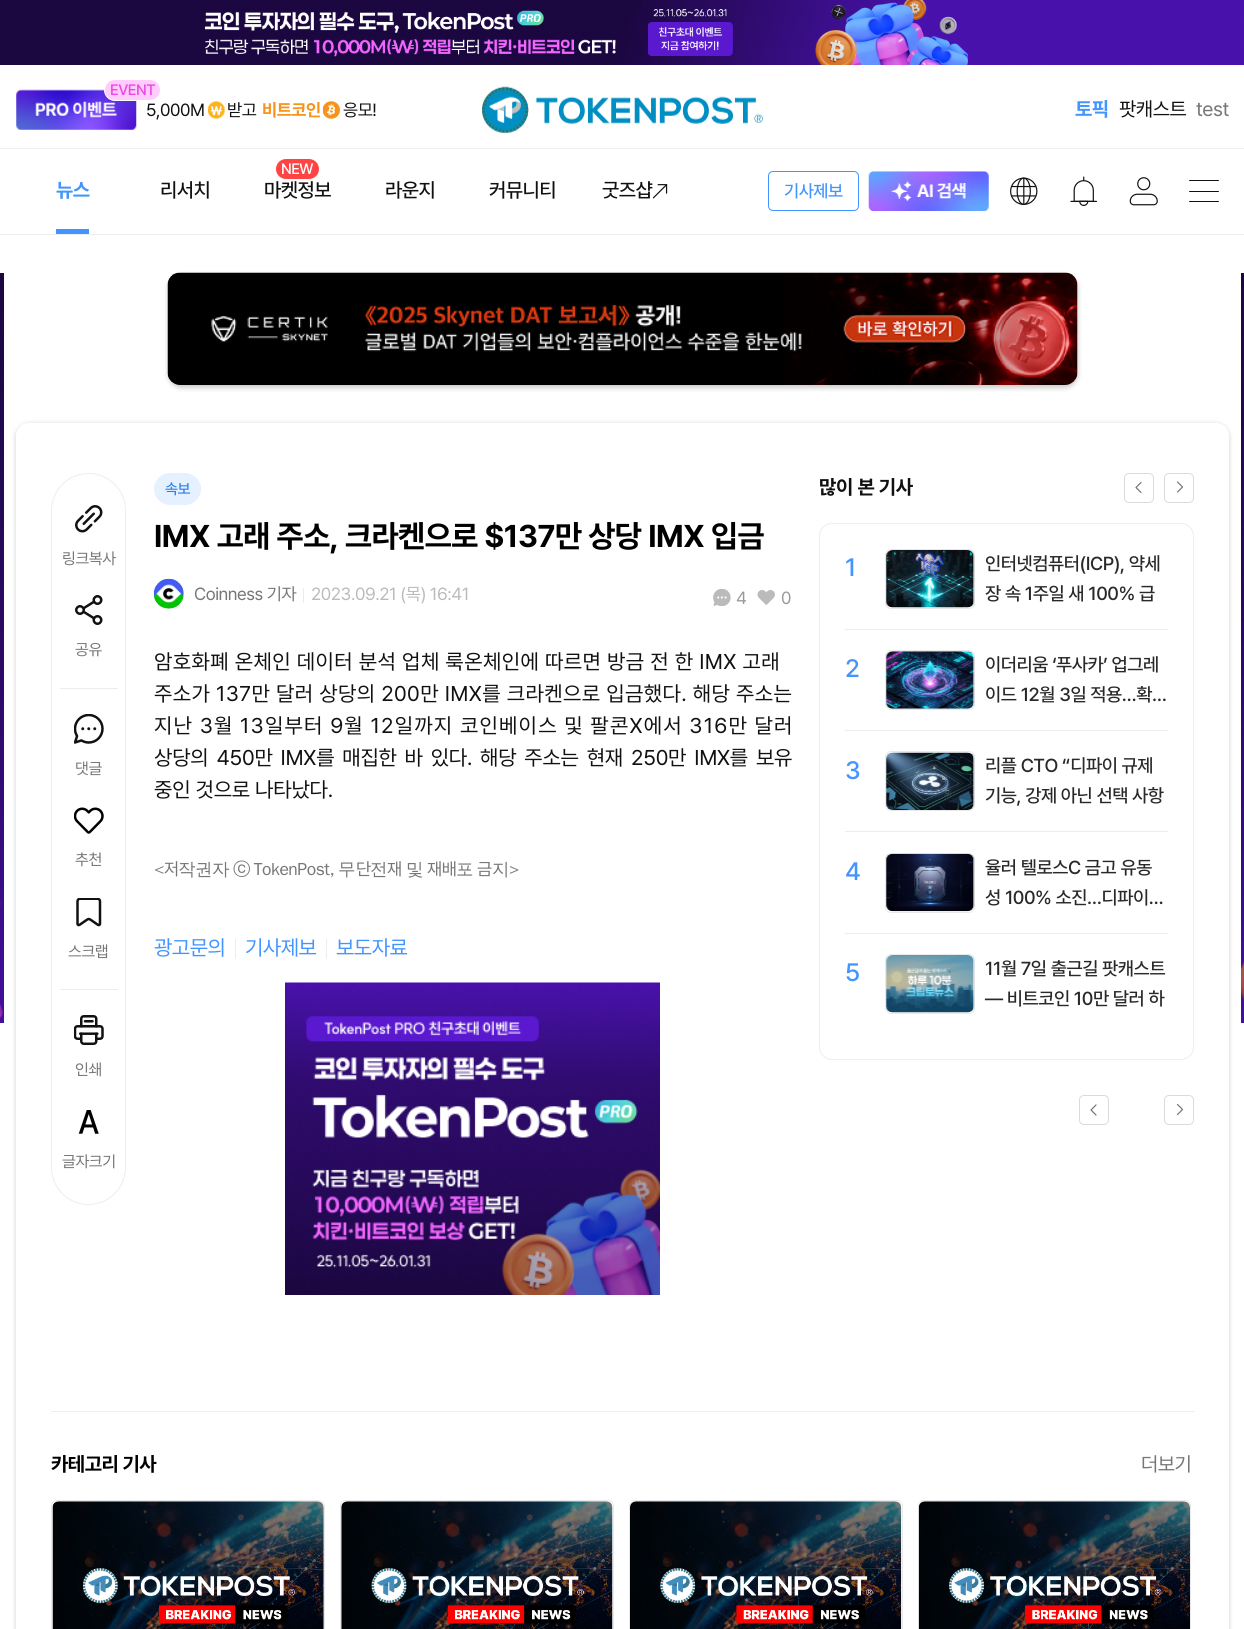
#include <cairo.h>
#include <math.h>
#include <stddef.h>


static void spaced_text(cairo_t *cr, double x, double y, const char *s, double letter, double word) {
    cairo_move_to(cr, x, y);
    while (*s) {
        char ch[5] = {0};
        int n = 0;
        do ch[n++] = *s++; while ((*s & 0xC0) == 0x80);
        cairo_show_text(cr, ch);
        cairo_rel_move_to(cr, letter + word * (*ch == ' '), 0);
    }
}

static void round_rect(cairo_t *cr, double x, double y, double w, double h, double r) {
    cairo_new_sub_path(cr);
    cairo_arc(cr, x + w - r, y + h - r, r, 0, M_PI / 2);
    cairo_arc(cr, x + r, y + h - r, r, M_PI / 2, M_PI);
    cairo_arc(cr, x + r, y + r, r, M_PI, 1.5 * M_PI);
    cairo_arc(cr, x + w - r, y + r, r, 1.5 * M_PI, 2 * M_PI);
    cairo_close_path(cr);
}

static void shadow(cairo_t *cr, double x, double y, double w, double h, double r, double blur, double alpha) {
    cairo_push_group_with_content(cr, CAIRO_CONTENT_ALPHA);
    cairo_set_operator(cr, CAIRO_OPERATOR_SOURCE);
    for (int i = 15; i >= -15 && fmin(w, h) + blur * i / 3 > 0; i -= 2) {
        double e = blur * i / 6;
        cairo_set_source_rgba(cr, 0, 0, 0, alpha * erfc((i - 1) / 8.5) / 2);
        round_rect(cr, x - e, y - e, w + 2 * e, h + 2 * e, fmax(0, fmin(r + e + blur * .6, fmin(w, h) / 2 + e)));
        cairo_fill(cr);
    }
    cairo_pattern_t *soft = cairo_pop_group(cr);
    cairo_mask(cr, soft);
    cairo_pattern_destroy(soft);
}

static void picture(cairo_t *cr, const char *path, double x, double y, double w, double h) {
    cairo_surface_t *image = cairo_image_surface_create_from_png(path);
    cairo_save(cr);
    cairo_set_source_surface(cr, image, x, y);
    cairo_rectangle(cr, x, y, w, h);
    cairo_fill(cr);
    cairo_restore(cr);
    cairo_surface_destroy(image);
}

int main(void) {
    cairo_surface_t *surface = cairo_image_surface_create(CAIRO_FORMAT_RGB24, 1244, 1629);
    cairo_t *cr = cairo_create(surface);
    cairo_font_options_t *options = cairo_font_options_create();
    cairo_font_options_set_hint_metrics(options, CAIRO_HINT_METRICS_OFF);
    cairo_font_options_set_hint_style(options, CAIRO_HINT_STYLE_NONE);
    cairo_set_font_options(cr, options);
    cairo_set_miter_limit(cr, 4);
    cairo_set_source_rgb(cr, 1, 1, 1);
    cairo_paint(cr);
    picture(cr, "img1.png", 0, 0, 1244, 65);
    cairo_set_source_rgb(cr, 0.929, 0.929, 0.929);
    cairo_rectangle(cr, 0, 148, 1244, 1);
    cairo_fill(cr);
    picture(cr, "img2.png", 16, 89, 121, 41);
    cairo_set_source_rgb(cr, 1, 0.8, 0.992);
    round_rect(cr, 104.5, 79.5, 56, 21, 10.5);
    cairo_fill_preserve(cr);
    cairo_set_source_rgb(cr, 1, 1, 1);
    cairo_set_line_width(cr, 1);
    cairo_stroke(cr);
    cairo_select_font_face(cr, "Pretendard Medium", CAIRO_FONT_SLANT_NORMAL, CAIRO_FONT_WEIGHT_NORMAL);
    cairo_set_font_size(cr, 15);
    cairo_set_source_rgb(cr, 0.918, 0.282, 0.89);
    spaced_text(cr, 110, 95, "EVENT", -0.45, 0);
    cairo_select_font_face(cr, "Pretendard", CAIRO_FONT_SLANT_NORMAL, CAIRO_FONT_WEIGHT_NORMAL);
    cairo_set_font_size(cr, 17.5);
    cairo_set_source_rgb(cr, 0.067, 0.067, 0.067);
    spaced_text(cr, 146, 116, "5,000M", -0.45, 0);
    picture(cr, "img3.png", 208, 101, 17, 18);
    spaced_text(cr, 227, 116, "받고", -0.45, 0);
    cairo_select_font_face(cr, "Pretendard", CAIRO_FONT_SLANT_NORMAL, CAIRO_FONT_WEIGHT_BOLD);
    cairo_set_source_rgb(cr, 0.969, 0.576, 0.102);
    spaced_text(cr, 262, 116, "비트코인", -0.45, 0);
    picture(cr, "img4.png", 323, 101, 17, 18);
    cairo_select_font_face(cr, "Pretendard", CAIRO_FONT_SLANT_NORMAL, CAIRO_FONT_WEIGHT_NORMAL);
    cairo_set_source_rgb(cr, 0.067, 0.067, 0.067);
    spaced_text(cr, 343, 116, "응모!", -0.45, 0);
    picture(cr, "img5.png", 482, 86, 281, 47);
    cairo_select_font_face(cr, "Pretendard", CAIRO_FONT_SLANT_NORMAL, CAIRO_FONT_WEIGHT_BOLD);
    cairo_set_font_size(cr, 20);
    cairo_set_source_rgb(cr, 0.259, 0.58, 1);
    spaced_text(cr, 1075, 116, "토픽", -0.5, 0);
    cairo_select_font_face(cr, "Pretendard", CAIRO_FONT_SLANT_NORMAL, CAIRO_FONT_WEIGHT_NORMAL);
    cairo_set_source_rgb(cr, 0.067, 0.067, 0.067);
    spaced_text(cr, 1119, 116, "팟캐스트", -0.45, 0);
    cairo_set_source_rgb(cr, 0.463, 0.463, 0.463);
    spaced_text(cr, 1196, 116, "test", -0.45, 0);
    cairo_set_source_rgb(cr, 0.929, 0.929, 0.929);
    cairo_rectangle(cr, 0, 234, 1244, 1);
    cairo_fill(cr);
    cairo_select_font_face(cr, "Pretendard", CAIRO_FONT_SLANT_NORMAL, CAIRO_FONT_WEIGHT_BOLD);
    cairo_set_source_rgb(cr, 0.259, 0.58, 1);
    spaced_text(cr, 56, 197, "뉴스", -0.5, 0);
    cairo_rectangle(cr, 56, 229, 33, 5);
    cairo_fill(cr);
    cairo_select_font_face(cr, "Pretendard Medium", CAIRO_FONT_SLANT_NORMAL, CAIRO_FONT_WEIGHT_NORMAL);
    cairo_set_source_rgb(cr, 0.067, 0.067, 0.067);
    spaced_text(cr, 160, 197, "리서치", -0.5, 0);
    cairo_set_source_rgb(cr, 1, 0.267, 0.267);
    round_rect(cr, 275.5, 158.5, 44, 21, 10.5);
    cairo_fill_preserve(cr);
    cairo_set_source_rgb(cr, 1, 1, 1);
    cairo_stroke(cr);
    cairo_set_font_size(cr, 15);
    spaced_text(cr, 281, 174, "NEW", -0.5, 0);
    cairo_set_font_size(cr, 20);
    cairo_set_source_rgb(cr, 0.067, 0.067, 0.067);
    spaced_text(cr, 264, 197, "마켓정보", -0.5, 0);
    spaced_text(cr, 385, 197, "라운지", -0.5, 0);
    spaced_text(cr, 489, 197, "커뮤니티", -0.5, 0);
    spaced_text(cr, 602, 197, "굿즈샵", -0.5, 0);
    picture(cr, "img6.png", 653, 184, 15, 15);
    round_rect(cr, 768.5, 171.5, 90, 39, 4.5);
    cairo_set_source_rgb(cr, 0.259, 0.58, 1);
    cairo_stroke(cr);
    cairo_set_font_size(cr, 17.5);
    spaced_text(cr, 784, 197, "기사제보", -0.45, 0);
    picture(cr, "img7.png", 868, 171, 121, 40);
    picture(cr, "img8.png", 1010, 177, 28, 28);
    picture(cr, "img9.png", 1070, 176, 28, 30);
    picture(cr, "img10.png", 1129, 177, 29, 29);
    cairo_set_source_rgb(cr, 0.067, 0.067, 0.067);
    round_rect(cr, 1189, 180, 30, 1, 0.5);
    cairo_fill(cr);
    round_rect(cr, 1189, 191, 30, 1, 0.5);
    cairo_fill(cr);
    round_rect(cr, 1189, 201, 30, 1, 0.5);
    cairo_fill(cr);
    picture(cr, "img11.png", 0, 273, 4, 750);
    cairo_set_source_rgb(cr, 0, 0, 0);
    shadow(cr, 168, 275, 910, 113, 13, 2.5, 0.2);
    picture(cr, "img12.png", 167, 272, 911, 113);
    cairo_save(cr);
    cairo_set_fill_rule(cr, CAIRO_FILL_RULE_EVEN_ODD);
    cairo_new_path(cr);
    cairo_move_to(cr, 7, 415);
    cairo_line_to(cr, 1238, 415);
    cairo_line_to(cr, 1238, 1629);
    cairo_line_to(cr, 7, 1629);
    cairo_close_path(cr);
    cairo_move_to(cr, 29, 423);
    cairo_line_to(cr, 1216, 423);
    cairo_curve_to(cr, 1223, 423, 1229, 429, 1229, 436);
    cairo_line_to(cr, 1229, 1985);
    cairo_curve_to(cr, 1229, 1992, 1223, 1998, 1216, 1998);
    cairo_line_to(cr, 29, 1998);
    cairo_curve_to(cr, 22, 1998, 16, 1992, 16, 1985);
    cairo_line_to(cr, 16, 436);
    cairo_curve_to(cr, 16, 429, 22, 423, 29, 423);
    cairo_close_path(cr);
    cairo_clip(cr);
    shadow(cr, 16, 424, 1213, 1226, 13, 2.5, 0.2);
    cairo_restore(cr);
    round_rect(cr, 51.5, 473.5, 74, 731, 37);
    cairo_set_source_rgb(cr, 0.929, 0.929, 0.929);
    cairo_stroke(cr);
    picture(cr, "img13.png", 75, 505, 28, 28);
    cairo_select_font_face(cr, "Pretendard", CAIRO_FONT_SLANT_NORMAL, CAIRO_FONT_WEIGHT_NORMAL);
    cairo_set_font_size(cr, 16);
    cairo_set_source_rgb(cr, 0.463, 0.463, 0.463);
    spaced_text(cr, 62, 564, "링크복사", -0.45, 0);
    cairo_set_source_rgb(cr, 0.929, 0.929, 0.929);
    cairo_rectangle(cr, 60, 688, 58, 1);
    cairo_fill(cr);
    picture(cr, "img14.png", 75, 595, 28, 30);
    cairo_set_source_rgb(cr, 0.463, 0.463, 0.463);
    spaced_text(cr, 75, 655, "공유", -0.45, 0);
    picture(cr, "img15.png", 74, 714, 30, 30);
    spaced_text(cr, 75, 774, "댓글", -0.45, 0);
    picture(cr, "img16.png", 74, 807, 30, 27);
    spaced_text(cr, 75, 865, "추천", -0.45, 0);
    cairo_set_source_rgb(cr, 0.929, 0.929, 0.929);
    cairo_rectangle(cr, 60, 989, 58, 1);
    cairo_fill(cr);
    picture(cr, "img17.png", 76, 898, 26, 29);
    cairo_set_source_rgb(cr, 0.463, 0.463, 0.463);
    spaced_text(cr, 68, 957, "스크랩", -0.45, 0);
    picture(cr, "img18.png", 74, 1015, 30, 30);
    spaced_text(cr, 75, 1075, "인쇄", -0.45, 0);
    picture(cr, "img19.png", 78, 1110, 21, 24);
    spaced_text(cr, 62, 1167, "글자크기", -0.45, 0);
    cairo_set_source_rgb(cr, 0.902, 0.945, 1);
    round_rect(cr, 154.5, 473.5, 46, 31, 15.5);
    cairo_fill_preserve(cr);
    cairo_stroke(cr);
    cairo_select_font_face(cr, "Pretendard Medium", CAIRO_FONT_SLANT_NORMAL, CAIRO_FONT_WEIGHT_NORMAL);
    cairo_set_font_size(cr, 15);
    cairo_set_source_rgb(cr, 0.184, 0.502, 0.922);
    spaced_text(cr, 165, 494, "속보", -0.45, 0);
    cairo_select_font_face(cr, "Pretendard", CAIRO_FONT_SLANT_NORMAL, CAIRO_FONT_WEIGHT_BOLD);
    cairo_set_font_size(cr, 31.25);
    cairo_set_source_rgb(cr, 0, 0, 0);
    spaced_text(cr, 154, 547, "IMX 고래 주소, 크라켄으로 $137만 상당 IMX 입금", -0.45, 0);
    picture(cr, "img20.png", 153, 578, 31, 31);
    cairo_select_font_face(cr, "Pretendard", CAIRO_FONT_SLANT_NORMAL, CAIRO_FONT_WEIGHT_NORMAL);
    cairo_set_font_size(cr, 17.5);
    cairo_set_source_rgb(cr, 0.463, 0.463, 0.463);
    spaced_text(cr, 194, 600, "Coinness 기자", -0.45, 0);
    cairo_set_source_rgb(cr, 0.922, 0.922, 0.941);
    cairo_rectangle(cr, 303, 588, 1, 15);
    cairo_fill(cr);
    cairo_set_source_rgb(cr, 0.733, 0.733, 0.733);
    spaced_text(cr, 311, 600, "2023.09.21 (목) 16:41", -0.45, 0);
    picture(cr, "img21.png", 713, 589, 18, 17);
    cairo_set_source_rgb(cr, 0.6, 0.6, 0.6);
    spaced_text(cr, 736, 604, "4", -0.45, 0);
    picture(cr, "img22.png", 757, 590, 18, 15);
    spaced_text(cr, 781, 604, "0", -0.45, 0);
    cairo_set_font_size(cr, 21.25);
    cairo_set_source_rgb(cr, 0.067, 0.067, 0.067);
    spaced_text(cr, 154, 669, "암호화폐 온체인 데이터 분석 업체 룩온체인에 따르면 방금 전 한 IMX 고래", 0.4, 0);
    spaced_text(cr, 154, 701, "주소가 137만 달러 상당의 200만 IMX를 크라켄으로 입금했다. 해당 주소는", 0.4, 0);
    spaced_text(cr, 154, 733, "지난 3월 13일부터 9월 12일까지 코인베이스 및 팔콘X에서 316만 달러", 1.2, 0);
    spaced_text(cr, 154, 765, "상당의 450만 IMX를 매집한 바 있다. 해당 주소는 현재 250만 IMX를 보유", -0.2, 2.75);
    spaced_text(cr, 154, 797, "중인 것으로 나타났다.", -0.2, 0);
    cairo_select_font_face(cr, "WenQuanYi Zen Hei Medium", CAIRO_FONT_SLANT_NORMAL, CAIRO_FONT_WEIGHT_NORMAL);
    cairo_set_font_size(cr, 17.5);
    cairo_set_source_rgb(cr, 0.463, 0.463, 0.463);
    spaced_text(cr, 154, 875, "<", -0.45, 0);
    cairo_select_font_face(cr, "Pretendard", CAIRO_FONT_SLANT_NORMAL, CAIRO_FONT_WEIGHT_NORMAL);
    spaced_text(cr, 164, 875, "저", -0.45, 0);
    cairo_select_font_face(cr, "WenQuanYi Zen Hei Medium", CAIRO_FONT_SLANT_NORMAL, CAIRO_FONT_WEIGHT_NORMAL);
    spaced_text(cr, 178, 875, "작권자 ⓒ TokenPost, 무", -0.45, -1);
    cairo_select_font_face(cr, "Pretendard", CAIRO_FONT_SLANT_NORMAL, CAIRO_FONT_WEIGHT_NORMAL);
    spaced_text(cr, 356, 875, "단", -0.45, 0);
    cairo_select_font_face(cr, "WenQuanYi Zen Hei Medium", CAIRO_FONT_SLANT_NORMAL, CAIRO_FONT_WEIGHT_NORMAL);
    spaced_text(cr, 370, 875, "전", -0.45, 0);
    cairo_select_font_face(cr, "Pretendard", CAIRO_FONT_SLANT_NORMAL, CAIRO_FONT_WEIGHT_NORMAL);
    spaced_text(cr, 387, 875, "재", -0.45, 0);
    cairo_select_font_face(cr, "WenQuanYi Zen Hei Medium", CAIRO_FONT_SLANT_NORMAL, CAIRO_FONT_WEIGHT_NORMAL);
    spaced_text(cr, 406, 875, "및", -0.45, 0);
    cairo_select_font_face(cr, "Pretendard", CAIRO_FONT_SLANT_NORMAL, CAIRO_FONT_WEIGHT_NORMAL);
    spaced_text(cr, 427, 875, "재배", -0.45, 0);
    cairo_select_font_face(cr, "WenQuanYi Zen Hei Medium", CAIRO_FONT_SLANT_NORMAL, CAIRO_FONT_WEIGHT_NORMAL);
    spaced_text(cr, 456, 875, "포", -0.45, 0);
    cairo_select_font_face(cr, "Pretendard", CAIRO_FONT_SLANT_NORMAL, CAIRO_FONT_WEIGHT_NORMAL);
    spaced_text(cr, 477, 875, "금", -0.45, 0);
    cairo_select_font_face(cr, "WenQuanYi Zen Hei Medium", CAIRO_FONT_SLANT_NORMAL, CAIRO_FONT_WEIGHT_NORMAL);
    spaced_text(cr, 492, 875, "지>", -0.45, 0);
    cairo_select_font_face(cr, "Pretendard", CAIRO_FONT_SLANT_NORMAL, CAIRO_FONT_WEIGHT_NORMAL);
    cairo_set_font_size(cr, 21.25);
    cairo_set_source_rgb(cr, 0.259, 0.58, 1);
    spaced_text(cr, 154, 955, "광고문의", -0.5, 0);
    cairo_set_source_rgb(cr, 0.929, 0.929, 0.929);
    cairo_rectangle(cr, 235, 939, 1, 20);
    cairo_fill(cr);
    cairo_set_source_rgb(cr, 0.259, 0.58, 1);
    spaced_text(cr, 245, 955, "기사제보", -0.5, 0);
    cairo_set_source_rgb(cr, 0.929, 0.929, 0.929);
    cairo_rectangle(cr, 326, 939, 1, 20);
    cairo_fill(cr);
    cairo_set_source_rgb(cr, 0.259, 0.58, 1);
    spaced_text(cr, 336, 955, "보도자료", -0.5, 0);
    picture(cr, "img23.png", 285, 982, 375, 313);
    cairo_select_font_face(cr, "Pretendard", CAIRO_FONT_SLANT_NORMAL, CAIRO_FONT_WEIGHT_BOLD);
    cairo_set_font_size(cr, 20);
    cairo_set_source_rgb(cr, 0.067, 0.067, 0.067);
    spaced_text(cr, 819, 494, "많이 본 기사", -0.25, 0);
    cairo_new_path(cr);
    cairo_move_to(cr, 1141, 482.5);
    cairo_line_to(cr, 1136, 487.5);
    cairo_line_to(cr, 1141, 492.5);
    cairo_set_source_rgb(cr, 0.463, 0.463, 0.463);
    cairo_set_line_width(cr, 1.2);
    cairo_set_line_cap(cr, CAIRO_LINE_CAP_ROUND);
    cairo_set_line_join(cr, CAIRO_LINE_JOIN_ROUND);
    cairo_stroke(cr);
    round_rect(cr, 1124.5, 473.5, 29, 29, 4.5);
    cairo_set_source_rgb(cr, 0.859, 0.859, 0.859);
    cairo_set_line_width(cr, 1);
    cairo_set_line_cap(cr, CAIRO_LINE_CAP_BUTT);
    cairo_set_line_join(cr, CAIRO_LINE_JOIN_MITER);
    cairo_stroke(cr);
    cairo_new_path(cr);
    cairo_move_to(cr, 1177.5, 482);
    cairo_line_to(cr, 1182.5, 487);
    cairo_line_to(cr, 1177.5, 492);
    cairo_set_source_rgb(cr, 0.463, 0.463, 0.463);
    cairo_set_line_width(cr, 1.2);
    cairo_set_line_cap(cr, CAIRO_LINE_CAP_ROUND);
    cairo_set_line_join(cr, CAIRO_LINE_JOIN_ROUND);
    cairo_stroke(cr);
    round_rect(cr, 1164.5, 473.5, 29, 29, 4.5);
    cairo_set_source_rgb(cr, 0.859, 0.859, 0.859);
    cairo_set_line_width(cr, 1);
    cairo_set_line_cap(cr, CAIRO_LINE_CAP_BUTT);
    cairo_set_line_join(cr, CAIRO_LINE_JOIN_MITER);
    cairo_stroke(cr);
    round_rect(cr, 819.5, 523.5, 374, 536, 12.5);
    cairo_set_source_rgb(cr, 0.929, 0.929, 0.929);
    cairo_stroke(cr);
    cairo_rectangle(cr, 845, 629, 323, 1);
    cairo_fill(cr);
    cairo_select_font_face(cr, "Pretendard Medium", CAIRO_FONT_SLANT_NORMAL, CAIRO_FONT_WEIGHT_NORMAL);
    cairo_set_font_size(cr, 25);
    cairo_set_source_rgb(cr, 0.259, 0.58, 1);
    spaced_text(cr, 845, 576, "1", -1, 0);
    round_rect(cr, 885.5, 549.5, 89, 59, 5.5);
    cairo_set_source_rgb(cr, 0.914, 0.914, 0.914);
    cairo_stroke(cr);
    picture(cr, "img24.png", 886, 550, 89, 58);
    cairo_set_font_size(cr, 18.75);
    cairo_set_source_rgb(cr, 0.161, 0.161, 0.161);
    spaced_text(cr, 985, 570, "인터넷컴퓨터(ICP), 약세", -0.45, 0);
    spaced_text(cr, 985, 600, "장 속 1주일 새 100% 급", -0.45, 0);
    cairo_set_source_rgb(cr, 0.929, 0.929, 0.929);
    cairo_rectangle(cr, 845, 730, 323, 1);
    cairo_fill(cr);
    cairo_set_font_size(cr, 25);
    cairo_set_source_rgb(cr, 0.259, 0.58, 1);
    spaced_text(cr, 845, 677, "2", -1, 0);
    round_rect(cr, 885.5, 650.5, 89, 59, 5.5);
    cairo_set_source_rgb(cr, 0.914, 0.914, 0.914);
    cairo_stroke(cr);
    picture(cr, "img25.png", 886, 651, 89, 58);
    cairo_set_font_size(cr, 18.75);
    cairo_set_source_rgb(cr, 0.161, 0.161, 0.161);
    spaced_text(cr, 985, 671, "이더리움 ‘푸사카’ 업그레", -0.45, 0);
    spaced_text(cr, 985, 701, "이드 12월 3일 적용…확…", -0.45, 0);
    cairo_set_source_rgb(cr, 0.929, 0.929, 0.929);
    cairo_rectangle(cr, 845, 831, 323, 1);
    cairo_fill(cr);
    cairo_set_font_size(cr, 25);
    cairo_set_source_rgb(cr, 0.259, 0.58, 1);
    spaced_text(cr, 845, 779, "3", -1, 0);
    round_rect(cr, 885.5, 751.5, 89, 59, 5.5);
    cairo_set_source_rgb(cr, 0.914, 0.914, 0.914);
    cairo_stroke(cr);
    picture(cr, "img26.png", 886, 752, 89, 58);
    cairo_set_font_size(cr, 18.75);
    cairo_set_source_rgb(cr, 0.161, 0.161, 0.161);
    spaced_text(cr, 985, 772, "리플 CTO “디파이 규제", -0.45, 0);
    spaced_text(cr, 985, 802, "기능, 강제 아닌 선택 사항", -0.45, 0);
    cairo_set_source_rgb(cr, 0.929, 0.929, 0.929);
    cairo_rectangle(cr, 845, 933, 323, 1);
    cairo_fill(cr);
    cairo_set_font_size(cr, 25);
    cairo_set_source_rgb(cr, 0.259, 0.58, 1);
    spaced_text(cr, 845, 880, "4", -1, 0);
    round_rect(cr, 885.5, 853.5, 89, 59, 5.5);
    cairo_set_source_rgb(cr, 0.914, 0.914, 0.914);
    cairo_stroke(cr);
    picture(cr, "img27.png", 886, 853, 89, 59);
    cairo_set_font_size(cr, 18.75);
    cairo_set_source_rgb(cr, 0.161, 0.161, 0.161);
    spaced_text(cr, 985, 874, "율러 텔로스C 금고 유동", -0.45, 0);
    spaced_text(cr, 985, 904, "성 100% 소진…디파이…", -0.45, 0);
    cairo_set_font_size(cr, 25);
    cairo_set_source_rgb(cr, 0.259, 0.58, 1);
    spaced_text(cr, 845, 981, "5", -1, 0);
    round_rect(cr, 885.5, 954.5, 89, 59, 5.5);
    cairo_set_source_rgb(cr, 0.914, 0.914, 0.914);
    cairo_stroke(cr);
    picture(cr, "img28.png", 886, 955, 89, 58);
    cairo_set_font_size(cr, 18.75);
    cairo_set_source_rgb(cr, 0.161, 0.161, 0.161);
    spaced_text(cr, 985, 975, "11월 7일 출근길 팟캐스트", -0.45, 0);
    spaced_text(cr, 985, 1005, "— 비트코인 10만 달러 하", -0.45, 0);
    cairo_new_path(cr);
    cairo_move_to(cr, 1096, 1105);
    cairo_line_to(cr, 1091, 1110);
    cairo_line_to(cr, 1096, 1115);
    cairo_set_source_rgb(cr, 0.463, 0.463, 0.463);
    cairo_set_line_width(cr, 1.2);
    cairo_set_line_cap(cr, CAIRO_LINE_CAP_ROUND);
    cairo_set_line_join(cr, CAIRO_LINE_JOIN_ROUND);
    cairo_stroke(cr);
    round_rect(cr, 1079.5, 1095.5, 29, 29, 4.5);
    cairo_set_source_rgb(cr, 0.859, 0.859, 0.859);
    cairo_set_line_width(cr, 1);
    cairo_set_line_cap(cr, CAIRO_LINE_CAP_BUTT);
    cairo_set_line_join(cr, CAIRO_LINE_JOIN_MITER);
    cairo_stroke(cr);
    cairo_new_path(cr);
    cairo_move_to(cr, 1177.5, 1104.5);
    cairo_line_to(cr, 1182.5, 1109.5);
    cairo_line_to(cr, 1177.5, 1114.5);
    cairo_set_source_rgb(cr, 0.463, 0.463, 0.463);
    cairo_set_line_width(cr, 1.2);
    cairo_set_line_cap(cr, CAIRO_LINE_CAP_ROUND);
    cairo_set_line_join(cr, CAIRO_LINE_JOIN_ROUND);
    cairo_stroke(cr);
    round_rect(cr, 1164.5, 1095.5, 29, 29, 4.5);
    cairo_set_source_rgb(cr, 0.859, 0.859, 0.859);
    cairo_set_line_width(cr, 1);
    cairo_set_line_cap(cr, CAIRO_LINE_CAP_BUTT);
    cairo_set_line_join(cr, CAIRO_LINE_JOIN_MITER);
    cairo_stroke(cr);
    cairo_set_source_rgb(cr, 0.929, 0.929, 0.929);
    cairo_rectangle(cr, 51, 1411, 1143, 1);
    cairo_fill(cr);
    cairo_select_font_face(cr, "Pretendard", CAIRO_FONT_SLANT_NORMAL, CAIRO_FONT_WEIGHT_BOLD);
    cairo_set_font_size(cr, 20);
    cairo_set_source_rgb(cr, 0, 0, 0);
    spaced_text(cr, 51, 1471, "카테고리 기사", -0.45, 0);
    cairo_select_font_face(cr, "Pretendard", CAIRO_FONT_SLANT_NORMAL, CAIRO_FONT_WEIGHT_NORMAL);
    cairo_set_source_rgb(cr, 0.463, 0.463, 0.463);
    spaced_text(cr, 1141, 1471, "더보기", -0.5, 0);
    round_rect(cr, 51.5, 1500.5, 273, 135, 5.5);
    cairo_set_source_rgb(cr, 0.914, 0.914, 0.914);
    cairo_stroke(cr);
    picture(cr, "img29.png", 52, 1501, 272, 128);
    round_rect(cr, 340.5, 1500.5, 273, 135, 5.5);
    cairo_stroke(cr);
    picture(cr, "img30.png", 341, 1501, 272, 128);
    round_rect(cr, 629.5, 1500.5, 273, 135, 5.5);
    cairo_stroke(cr);
    picture(cr, "img31.png", 630, 1501, 272, 128);
    round_rect(cr, 918.5, 1500.5, 272, 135, 5.5);
    cairo_stroke(cr);
    picture(cr, "img32.png", 918, 1501, 272, 128);
    picture(cr, "img33.png", 1241, 273, 3, 750);
    cairo_surface_write_to_png(surface, "page.png");
    cairo_font_options_destroy(options);
    cairo_destroy(cr);
    cairo_surface_destroy(surface);
    return 0;
}
